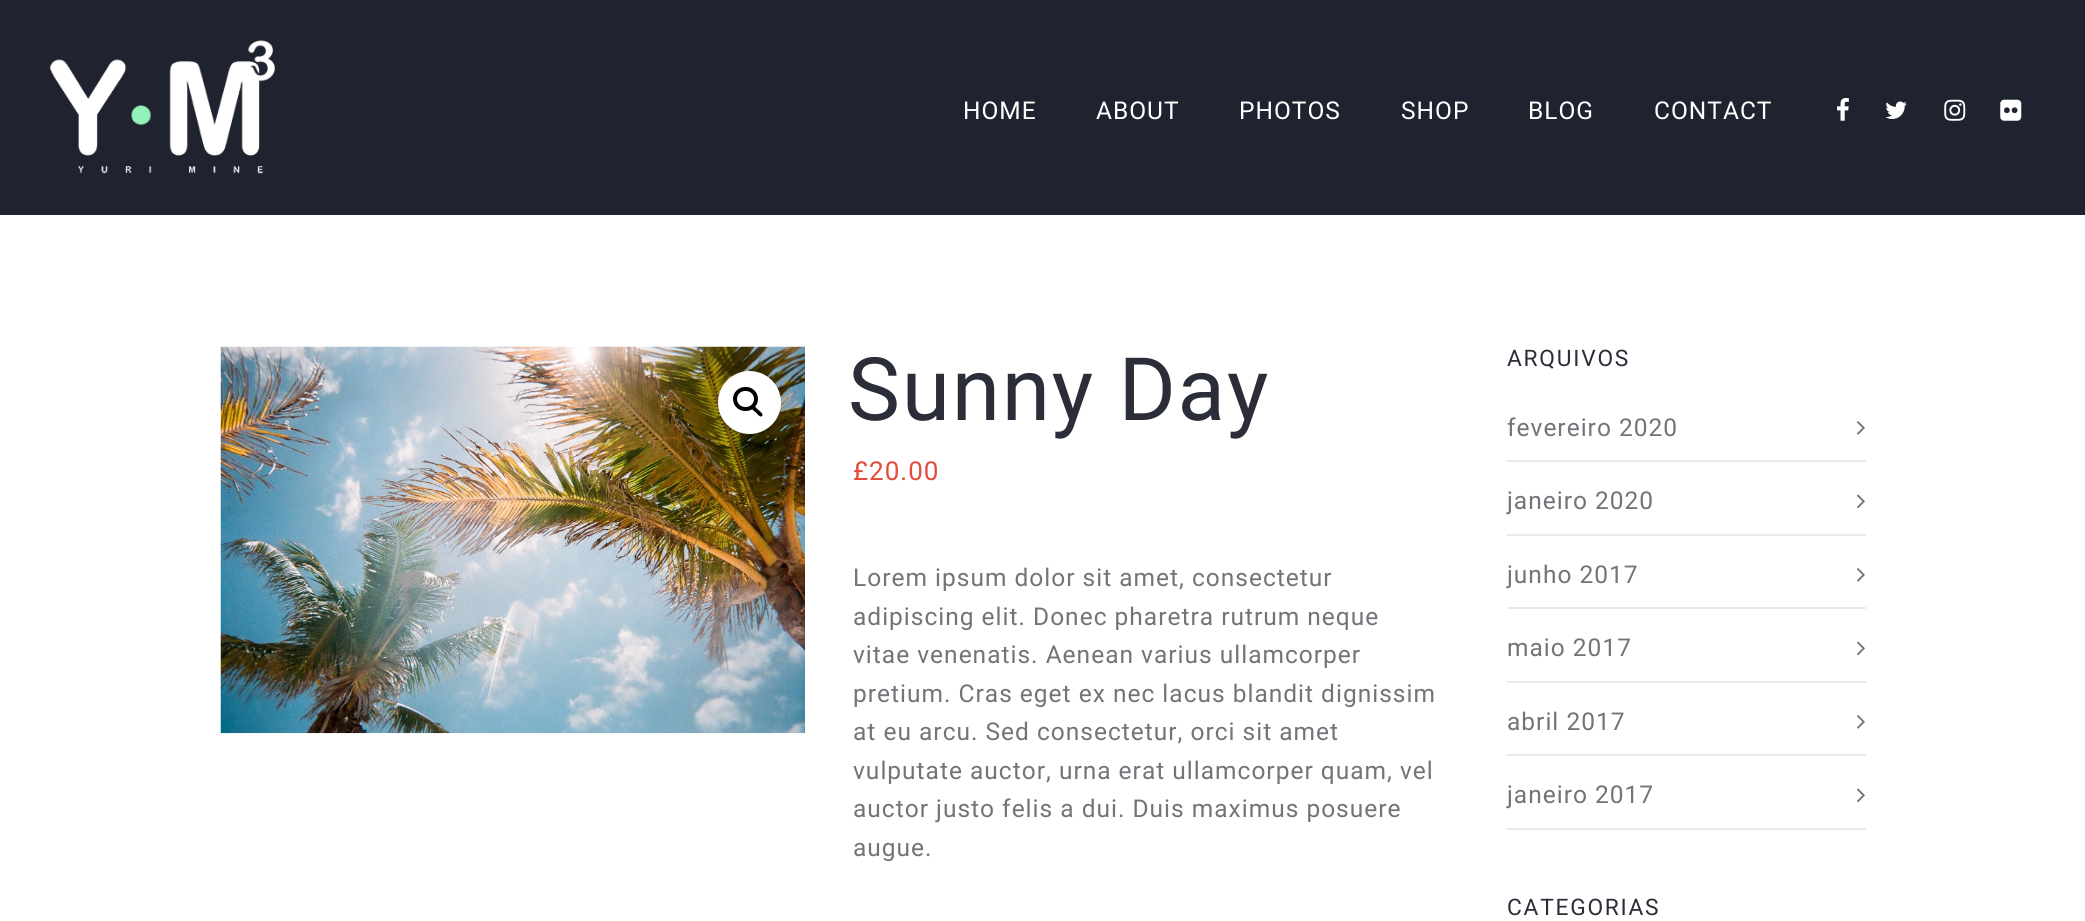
#include <cairo.h>
#include <math.h>
#include <stddef.h>


static void spaced_text(cairo_t *cr, double x, double y, const char *s, double letter, double word) {
    cairo_move_to(cr, x, y);
    while (*s) {
        char ch[5] = {0};
        int n = 0;
        do ch[n++] = *s++; while ((*s & 0xC0) == 0x80);
        cairo_show_text(cr, ch);
        cairo_rel_move_to(cr, letter + word * (*ch == ' '), 0);
    }
}

static void round_rect(cairo_t *cr, double x, double y, double w, double h, double r) {
    cairo_new_sub_path(cr);
    cairo_arc(cr, x + w - r, y + h - r, r, 0, M_PI / 2);
    cairo_arc(cr, x + r, y + h - r, r, M_PI / 2, M_PI);
    cairo_arc(cr, x + r, y + r, r, M_PI, 1.5 * M_PI);
    cairo_arc(cr, x + w - r, y + r, r, 1.5 * M_PI, 2 * M_PI);
    cairo_close_path(cr);
}

static void picture(cairo_t *cr, const char *path, double x, double y, double w, double h) {
    cairo_surface_t *image = cairo_image_surface_create_from_png(path);
    cairo_save(cr);
    cairo_set_source_surface(cr, image, x, y);
    cairo_rectangle(cr, x, y, w, h);
    cairo_fill(cr);
    cairo_restore(cr);
    cairo_surface_destroy(image);
}

int main(void) {
    cairo_surface_t *surface = cairo_image_surface_create(CAIRO_FORMAT_RGB24, 2085, 921);
    cairo_t *cr = cairo_create(surface);
    cairo_font_options_t *options = cairo_font_options_create();
    cairo_font_options_set_hint_metrics(options, CAIRO_HINT_METRICS_OFF);
    cairo_font_options_set_hint_style(options, CAIRO_HINT_STYLE_NONE);
    cairo_set_font_options(cr, options);
    cairo_set_miter_limit(cr, 4);
    cairo_set_source_rgb(cr, 1, 1, 1);
    cairo_paint(cr);
    cairo_set_source_rgb(cr, 0.122, 0.137, 0.184);
    cairo_rectangle(cr, 0, 0, 2085, 215);
    cairo_fill(cr);
    picture(cr, "img1.png", 49, 40, 226, 134);
    cairo_select_font_face(cr, "Roboto", CAIRO_FONT_SLANT_NORMAL, CAIRO_FONT_WEIGHT_NORMAL);
    cairo_set_font_size(cr, 24.5);
    cairo_set_source_rgb(cr, 1, 1, 1);
    spaced_text(cr, 963, 119, "HOME", 1, 0);
    spaced_text(cr, 1096, 119, "ABOUT", 1, 0);
    spaced_text(cr, 1239, 119, "PHOTOS", 1, 0);
    spaced_text(cr, 1401, 119, "SHOP", 1, 0);
    spaced_text(cr, 1528, 119, "BLOG", 1, 0);
    spaced_text(cr, 1654, 119, "CONTACT", 1, 0);
    picture(cr, "img2.png", 1837, 98, 12, 23);
    picture(cr, "img3.png", 1885, 101, 22, 18);
    picture(cr, "img4.png", 1944, 99, 22, 22);
    picture(cr, "img5.png", 2000, 99, 22, 22);
    picture(cr, "img6.png", 220, 346, 585, 388);
    cairo_arc(cr, 749.5, 402.5, 31.5, 0, 2 * M_PI);
    cairo_fill(cr);
    round_rect(cr, 735, 389, 21, 20, 10);
    cairo_set_source_rgb(cr, 0, 0, 0);
    cairo_set_line_width(cr, 4);
    cairo_stroke(cr);
    cairo_new_path(cr);
    cairo_move_to(cr, 752, 406.5);
    cairo_curve_to(cr, 754, 404.5, 757, 409, 758.5, 410);
    cairo_curve_to(cr, 759.5, 411, 764, 414, 762, 416);
    cairo_curve_to(cr, 760, 418, 757, 413.5, 756, 412.5);
    cairo_curve_to(cr, 754.5, 411.5, 750, 408.5, 752, 406.5);
    cairo_close_path(cr);
    cairo_fill(cr);
    cairo_set_font_size(cr, 87.5);
    cairo_set_source_rgb(cr, 0.169, 0.176, 0.22);
    spaced_text(cr, 848, 420, "Sunny Day", 1.75, 0);
    cairo_set_font_size(cr, 26);
    cairo_set_source_rgb(cr, 0.894, 0.294, 0.235);
    spaced_text(cr, 853, 480, "£20.00", 1, 0);
    cairo_set_font_size(cr, 24.5);
    cairo_set_source_rgb(cr, 0.451, 0.455, 0.475);
    spaced_text(cr, 853, 586, "Lorem ipsum dolor sit amet, consectetur", 1, 0);
    spaced_text(cr, 853, 625, "adipiscing elit. Donec pharetra rutrum neque", 1, 0);
    spaced_text(cr, 853, 663, "vitae venenatis. Aenean varius ullamcorper", 1, 0);
    spaced_text(cr, 853, 702, "pretium. Cras eget ex nec lacus blandit dignissim", 1, 0);
    spaced_text(cr, 853, 740, "at eu arcu. Sed consectetur, orci sit amet", 1, 0);
    spaced_text(cr, 853, 779, "vulputate auctor, urna erat ullamcorper quam, vel", 1, 0);
    spaced_text(cr, 853, 817, "auctor justo felis a dui. Duis maximus posuere", 1, 0);
    spaced_text(cr, 853, 856, "augue.", 1, 0);
    cairo_set_font_size(cr, 22.75);
    cairo_set_source_rgb(cr, 0.169, 0.176, 0.22);
    spaced_text(cr, 1507, 366, "ARQUIVOS", 1.75, 0);
    cairo_set_source_rgb(cr, 0.91, 0.918, 0.933);
    cairo_rectangle(cr, 1507, 460, 359, 2);
    cairo_fill(cr);
    cairo_set_font_size(cr, 24.5);
    cairo_set_source_rgb(cr, 0.451, 0.455, 0.475);
    spaced_text(cr, 1507, 436, "fevereiro 2020", 1, 0);
    picture(cr, "img7.png", 1857, 421, 8, 14);
    cairo_set_source_rgb(cr, 0.91, 0.918, 0.933);
    cairo_rectangle(cr, 1507, 534, 359, 2);
    cairo_fill(cr);
    cairo_set_source_rgb(cr, 0.451, 0.455, 0.475);
    spaced_text(cr, 1507, 509, "janeiro 2020", 1, 0);
    picture(cr, "img8.png", 1857, 494, 8, 15);
    cairo_set_source_rgb(cr, 0.91, 0.918, 0.933);
    cairo_rectangle(cr, 1507, 607, 359, 2);
    cairo_fill(cr);
    cairo_set_source_rgb(cr, 0.451, 0.455, 0.475);
    spaced_text(cr, 1507, 583, "junho 2017", 1, 0);
    picture(cr, "img7.png", 1857, 568, 8, 14);
    cairo_set_source_rgb(cr, 0.91, 0.918, 0.933);
    cairo_rectangle(cr, 1507, 681, 359, 2);
    cairo_fill(cr);
    cairo_set_source_rgb(cr, 0.451, 0.455, 0.475);
    spaced_text(cr, 1507, 656, "maio 2017", 1, 0);
    picture(cr, "img8.png", 1857, 641, 8, 15);
    cairo_set_source_rgb(cr, 0.91, 0.918, 0.933);
    cairo_rectangle(cr, 1507, 754, 359, 2);
    cairo_fill(cr);
    cairo_set_source_rgb(cr, 0.451, 0.455, 0.475);
    spaced_text(cr, 1507, 730, "abril 2017", 1, 0);
    picture(cr, "img7.png", 1857, 715, 8, 14);
    cairo_set_source_rgb(cr, 0.91, 0.918, 0.933);
    cairo_rectangle(cr, 1507, 828, 359, 2);
    cairo_fill(cr);
    cairo_set_source_rgb(cr, 0.451, 0.455, 0.475);
    spaced_text(cr, 1507, 803, "janeiro 2017", 1, 0);
    picture(cr, "img8.png", 1857, 788, 8, 15);
    cairo_set_font_size(cr, 22.75);
    cairo_set_source_rgb(cr, 0.169, 0.176, 0.22);
    spaced_text(cr, 1507, 915, "CATEGORIAS", 1.75, 0);
    cairo_surface_write_to_png(surface, "page.png");
    cairo_font_options_destroy(options);
    cairo_destroy(cr);
    cairo_surface_destroy(surface);
    return 0;
}
